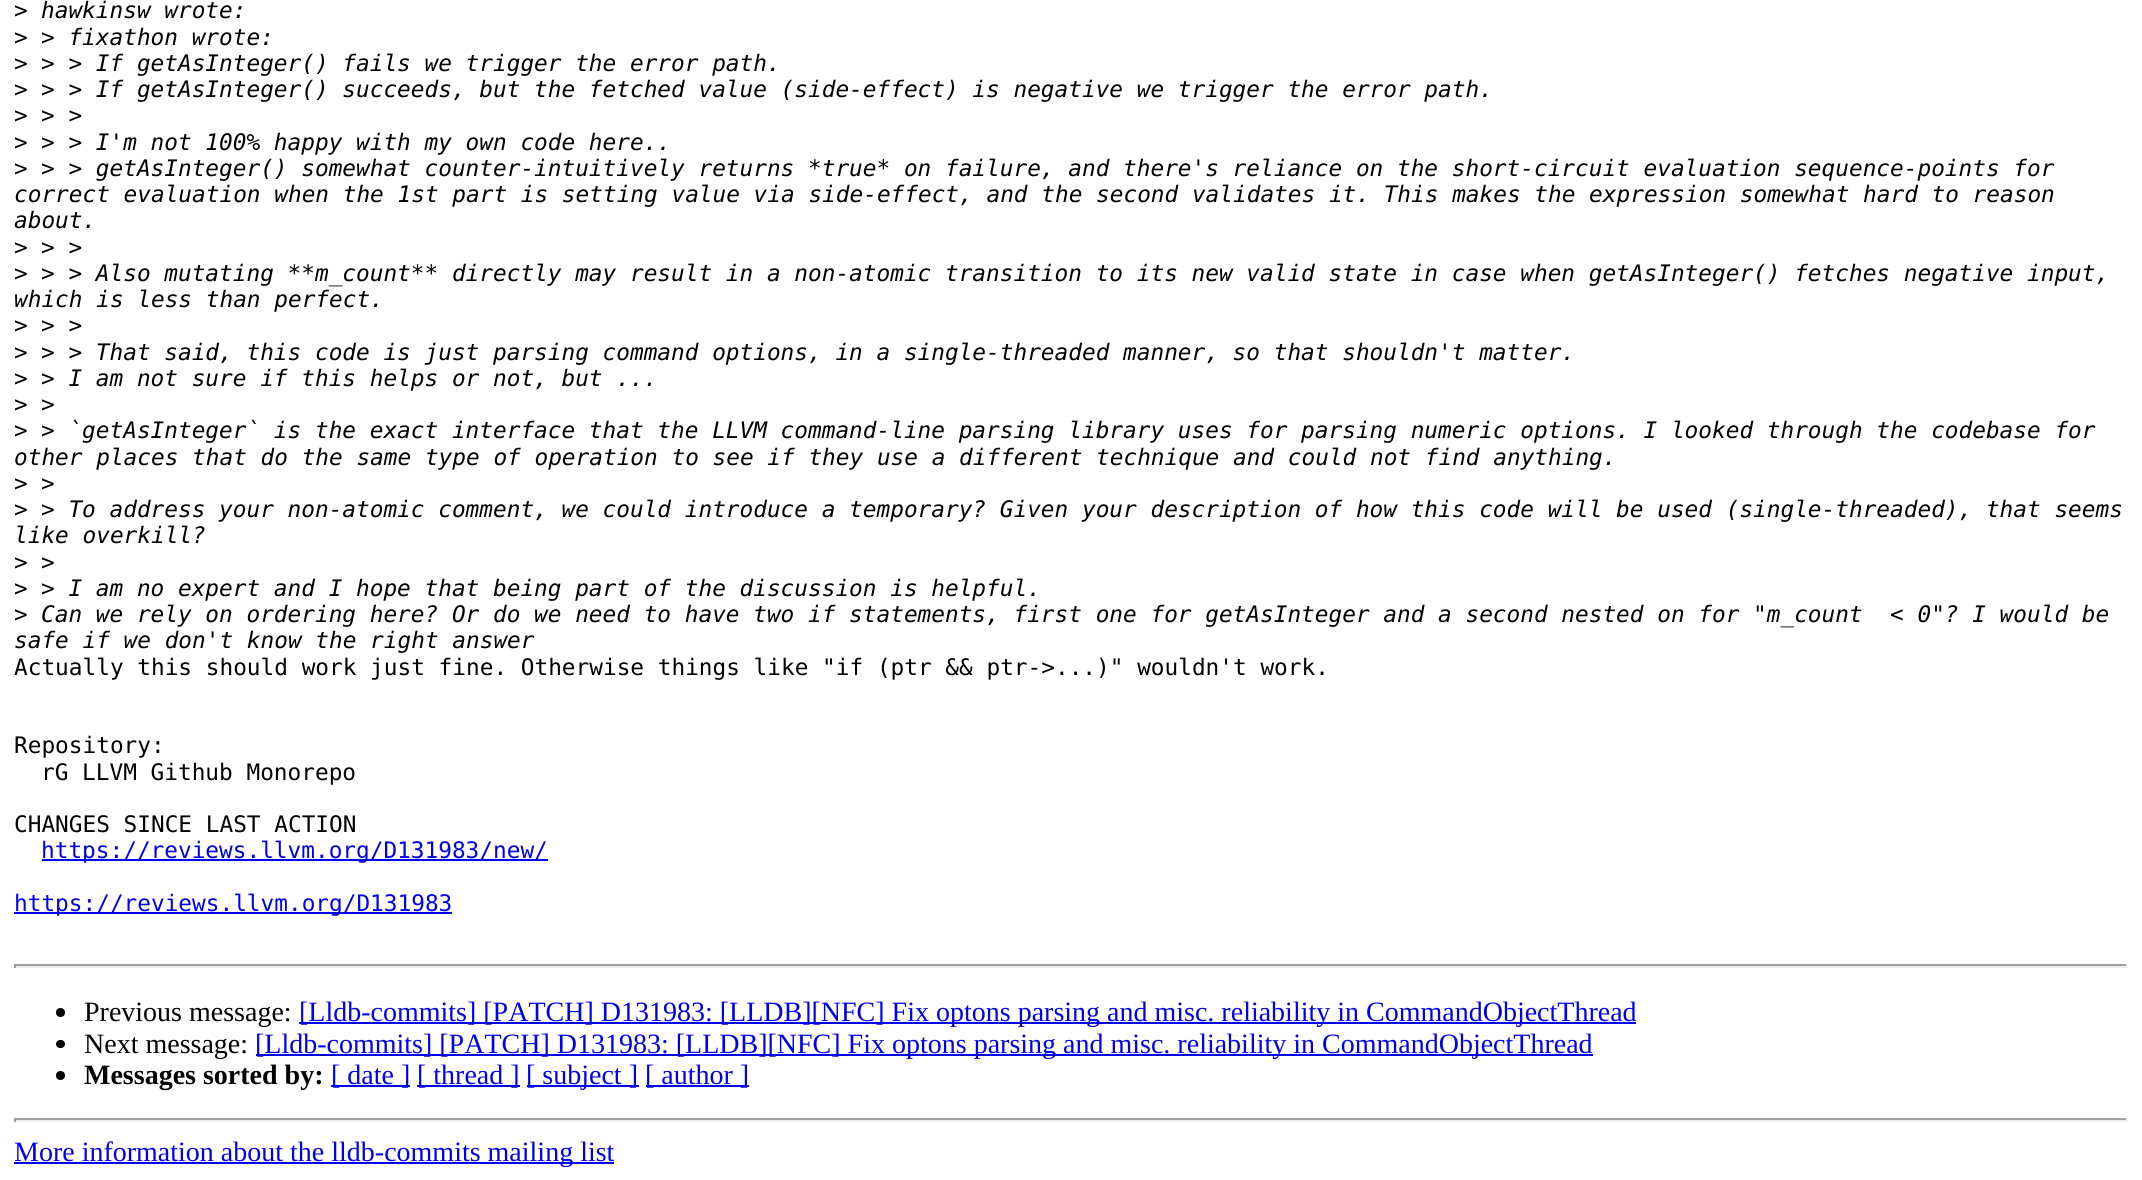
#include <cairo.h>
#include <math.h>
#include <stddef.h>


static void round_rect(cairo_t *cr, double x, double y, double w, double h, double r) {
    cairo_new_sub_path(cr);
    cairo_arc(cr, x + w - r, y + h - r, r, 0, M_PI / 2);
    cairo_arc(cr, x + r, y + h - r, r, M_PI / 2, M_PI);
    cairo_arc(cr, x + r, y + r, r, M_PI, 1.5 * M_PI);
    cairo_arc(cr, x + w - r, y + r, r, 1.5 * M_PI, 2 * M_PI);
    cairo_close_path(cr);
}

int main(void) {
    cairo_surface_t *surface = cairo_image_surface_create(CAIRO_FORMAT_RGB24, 2142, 1180);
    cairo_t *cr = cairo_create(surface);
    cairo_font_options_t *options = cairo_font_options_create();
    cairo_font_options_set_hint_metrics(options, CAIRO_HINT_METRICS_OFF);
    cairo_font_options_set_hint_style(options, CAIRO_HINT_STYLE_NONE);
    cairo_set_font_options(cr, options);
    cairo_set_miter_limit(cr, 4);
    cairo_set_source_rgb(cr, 1, 1, 1);
    cairo_paint(cr);
    cairo_select_font_face(cr, "DejaVu Sans Mono", CAIRO_FONT_SLANT_NORMAL, CAIRO_FONT_WEIGHT_NORMAL);
    cairo_set_font_size(cr, 22.75);
    cairo_set_source_rgb(cr, 0, 0, 0);
    cairo_move_to(cr, 14, 18);
    cairo_show_text(cr, ">");
    cairo_select_font_face(cr, "DejaVu Sans Mono", CAIRO_FONT_SLANT_ITALIC, CAIRO_FONT_WEIGHT_NORMAL);
    cairo_move_to(cr, 41, 18);
    cairo_show_text(cr, "hawkinsw wrote:");
    cairo_select_font_face(cr, "DejaVu Sans Mono", CAIRO_FONT_SLANT_NORMAL, CAIRO_FONT_WEIGHT_NORMAL);
    cairo_move_to(cr, 14, 45);
    cairo_show_text(cr, ">");
    cairo_select_font_face(cr, "DejaVu Sans Mono", CAIRO_FONT_SLANT_ITALIC, CAIRO_FONT_WEIGHT_NORMAL);
    cairo_move_to(cr, 41, 45);
    cairo_show_text(cr, "> fixathon wrote:");
    cairo_select_font_face(cr, "DejaVu Sans Mono", CAIRO_FONT_SLANT_NORMAL, CAIRO_FONT_WEIGHT_NORMAL);
    cairo_move_to(cr, 14, 71);
    cairo_show_text(cr, ">");
    cairo_select_font_face(cr, "DejaVu Sans Mono", CAIRO_FONT_SLANT_ITALIC, CAIRO_FONT_WEIGHT_NORMAL);
    cairo_move_to(cr, 41, 71);
    cairo_show_text(cr, "> > If getAsInteger() fails we trigger the error path.");
    cairo_select_font_face(cr, "DejaVu Sans Mono", CAIRO_FONT_SLANT_NORMAL, CAIRO_FONT_WEIGHT_NORMAL);
    cairo_move_to(cr, 14, 97);
    cairo_show_text(cr, ">");
    cairo_select_font_face(cr, "DejaVu Sans Mono", CAIRO_FONT_SLANT_ITALIC, CAIRO_FONT_WEIGHT_NORMAL);
    cairo_move_to(cr, 41, 97);
    cairo_show_text(cr, "> > If getAsInteger() succeeds, but the fetched value (side-effect) is negative we trigger the error path.");
    cairo_select_font_face(cr, "DejaVu Sans Mono", CAIRO_FONT_SLANT_NORMAL, CAIRO_FONT_WEIGHT_NORMAL);
    cairo_move_to(cr, 14, 123);
    cairo_show_text(cr, ">");
    cairo_select_font_face(cr, "DejaVu Sans Mono", CAIRO_FONT_SLANT_ITALIC, CAIRO_FONT_WEIGHT_NORMAL);
    cairo_move_to(cr, 41, 123);
    cairo_show_text(cr, "> >");
    cairo_select_font_face(cr, "DejaVu Sans Mono", CAIRO_FONT_SLANT_NORMAL, CAIRO_FONT_WEIGHT_NORMAL);
    cairo_move_to(cr, 14, 150);
    cairo_show_text(cr, ">");
    cairo_select_font_face(cr, "DejaVu Sans Mono", CAIRO_FONT_SLANT_ITALIC, CAIRO_FONT_WEIGHT_NORMAL);
    cairo_move_to(cr, 41, 150);
    cairo_show_text(cr, "> > I'm not 100% happy with my own code here..");
    cairo_select_font_face(cr, "DejaVu Sans Mono", CAIRO_FONT_SLANT_NORMAL, CAIRO_FONT_WEIGHT_NORMAL);
    cairo_move_to(cr, 14, 176);
    cairo_show_text(cr, ">");
    cairo_select_font_face(cr, "DejaVu Sans Mono", CAIRO_FONT_SLANT_ITALIC, CAIRO_FONT_WEIGHT_NORMAL);
    cairo_move_to(cr, 41, 176);
    cairo_show_text(cr, "> > getAsInteger() somewhat counter-intuitively returns *true* on failure, and there's reliance on the short-circuit evaluation sequence-points for");
    cairo_move_to(cr, 14, 202);
    cairo_show_text(cr, "correct evaluation when the 1st part is setting value via side-effect, and the second validates it. This makes the expression somewhat hard to reason");
    cairo_move_to(cr, 14, 228);
    cairo_show_text(cr, "about.");
    cairo_select_font_face(cr, "DejaVu Sans Mono", CAIRO_FONT_SLANT_NORMAL, CAIRO_FONT_WEIGHT_NORMAL);
    cairo_move_to(cr, 14, 255);
    cairo_show_text(cr, ">");
    cairo_select_font_face(cr, "DejaVu Sans Mono", CAIRO_FONT_SLANT_ITALIC, CAIRO_FONT_WEIGHT_NORMAL);
    cairo_move_to(cr, 41, 255);
    cairo_show_text(cr, "> >");
    cairo_select_font_face(cr, "DejaVu Sans Mono", CAIRO_FONT_SLANT_NORMAL, CAIRO_FONT_WEIGHT_NORMAL);
    cairo_move_to(cr, 14, 281);
    cairo_show_text(cr, ">");
    cairo_select_font_face(cr, "DejaVu Sans Mono", CAIRO_FONT_SLANT_ITALIC, CAIRO_FONT_WEIGHT_NORMAL);
    cairo_move_to(cr, 41, 281);
    cairo_show_text(cr, "> > Also mutating **m_count** directly may result in a non-atomic transition to its new valid state in case when getAsInteger() fetches negative input,");
    cairo_move_to(cr, 14, 307);
    cairo_show_text(cr, "which is less than perfect.");
    cairo_select_font_face(cr, "DejaVu Sans Mono", CAIRO_FONT_SLANT_NORMAL, CAIRO_FONT_WEIGHT_NORMAL);
    cairo_move_to(cr, 14, 333);
    cairo_show_text(cr, ">");
    cairo_select_font_face(cr, "DejaVu Sans Mono", CAIRO_FONT_SLANT_ITALIC, CAIRO_FONT_WEIGHT_NORMAL);
    cairo_move_to(cr, 41, 333);
    cairo_show_text(cr, "> >");
    cairo_select_font_face(cr, "DejaVu Sans Mono", CAIRO_FONT_SLANT_NORMAL, CAIRO_FONT_WEIGHT_NORMAL);
    cairo_move_to(cr, 14, 360);
    cairo_show_text(cr, ">");
    cairo_select_font_face(cr, "DejaVu Sans Mono", CAIRO_FONT_SLANT_ITALIC, CAIRO_FONT_WEIGHT_NORMAL);
    cairo_move_to(cr, 41, 360);
    cairo_show_text(cr, "> > That said, this code is just parsing command options, in a single-threaded manner, so that shouldn't matter.");
    cairo_select_font_face(cr, "DejaVu Sans Mono", CAIRO_FONT_SLANT_NORMAL, CAIRO_FONT_WEIGHT_NORMAL);
    cairo_move_to(cr, 14, 386);
    cairo_show_text(cr, ">");
    cairo_select_font_face(cr, "DejaVu Sans Mono", CAIRO_FONT_SLANT_ITALIC, CAIRO_FONT_WEIGHT_NORMAL);
    cairo_move_to(cr, 41, 386);
    cairo_show_text(cr, "> I am not sure if this helps or not, but ...");
    cairo_select_font_face(cr, "DejaVu Sans Mono", CAIRO_FONT_SLANT_NORMAL, CAIRO_FONT_WEIGHT_NORMAL);
    cairo_move_to(cr, 14, 412);
    cairo_show_text(cr, ">");
    cairo_select_font_face(cr, "DejaVu Sans Mono", CAIRO_FONT_SLANT_ITALIC, CAIRO_FONT_WEIGHT_NORMAL);
    cairo_move_to(cr, 41, 412);
    cairo_show_text(cr, ">");
    cairo_select_font_face(cr, "DejaVu Sans Mono", CAIRO_FONT_SLANT_NORMAL, CAIRO_FONT_WEIGHT_NORMAL);
    cairo_move_to(cr, 14, 438);
    cairo_show_text(cr, ">");
    cairo_select_font_face(cr, "DejaVu Sans Mono", CAIRO_FONT_SLANT_ITALIC, CAIRO_FONT_WEIGHT_NORMAL);
    cairo_move_to(cr, 41, 438);
    cairo_show_text(cr, "> `getAsInteger` is the exact interface that the LLVM command-line parsing library uses for parsing numeric options. I looked through the codebase for");
    cairo_move_to(cr, 14, 465);
    cairo_show_text(cr, "other places that do the same type of operation to see if they use a different technique and could not find anything.");
    cairo_select_font_face(cr, "DejaVu Sans Mono", CAIRO_FONT_SLANT_NORMAL, CAIRO_FONT_WEIGHT_NORMAL);
    cairo_move_to(cr, 14, 491);
    cairo_show_text(cr, ">");
    cairo_select_font_face(cr, "DejaVu Sans Mono", CAIRO_FONT_SLANT_ITALIC, CAIRO_FONT_WEIGHT_NORMAL);
    cairo_move_to(cr, 41, 491);
    cairo_show_text(cr, ">");
    cairo_select_font_face(cr, "DejaVu Sans Mono", CAIRO_FONT_SLANT_NORMAL, CAIRO_FONT_WEIGHT_NORMAL);
    cairo_move_to(cr, 14, 517);
    cairo_show_text(cr, ">");
    cairo_select_font_face(cr, "DejaVu Sans Mono", CAIRO_FONT_SLANT_ITALIC, CAIRO_FONT_WEIGHT_NORMAL);
    cairo_move_to(cr, 41, 517);
    cairo_show_text(cr, "> To address your non-atomic comment, we could introduce a temporary? Given your description of how this code will be used (single-threaded), that seems");
    cairo_move_to(cr, 14, 543);
    cairo_show_text(cr, "like overkill?");
    cairo_select_font_face(cr, "DejaVu Sans Mono", CAIRO_FONT_SLANT_NORMAL, CAIRO_FONT_WEIGHT_NORMAL);
    cairo_move_to(cr, 14, 570);
    cairo_show_text(cr, ">");
    cairo_select_font_face(cr, "DejaVu Sans Mono", CAIRO_FONT_SLANT_ITALIC, CAIRO_FONT_WEIGHT_NORMAL);
    cairo_move_to(cr, 41, 570);
    cairo_show_text(cr, ">");
    cairo_select_font_face(cr, "DejaVu Sans Mono", CAIRO_FONT_SLANT_NORMAL, CAIRO_FONT_WEIGHT_NORMAL);
    cairo_move_to(cr, 14, 596);
    cairo_show_text(cr, ">");
    cairo_select_font_face(cr, "DejaVu Sans Mono", CAIRO_FONT_SLANT_ITALIC, CAIRO_FONT_WEIGHT_NORMAL);
    cairo_move_to(cr, 41, 596);
    cairo_show_text(cr, "> I am no expert and I hope that being part of the discussion is helpful.");
    cairo_select_font_face(cr, "DejaVu Sans Mono", CAIRO_FONT_SLANT_NORMAL, CAIRO_FONT_WEIGHT_NORMAL);
    cairo_move_to(cr, 14, 622);
    cairo_show_text(cr, ">");
    cairo_select_font_face(cr, "DejaVu Sans Mono", CAIRO_FONT_SLANT_ITALIC, CAIRO_FONT_WEIGHT_NORMAL);
    cairo_move_to(cr, 41, 622);
    cairo_show_text(cr, "Can we rely on ordering here? Or do we need to have two if statements, first one for getAsInteger and a second nested on for \"m_count  < 0\"? I would be");
    cairo_move_to(cr, 14, 648);
    cairo_show_text(cr, "safe if we don't know the right answer");
    cairo_select_font_face(cr, "DejaVu Sans Mono", CAIRO_FONT_SLANT_NORMAL, CAIRO_FONT_WEIGHT_NORMAL);
    cairo_move_to(cr, 14, 675);
    cairo_show_text(cr, "Actually this should work just fine. Otherwise things like \"if (ptr && ptr->...)\" wouldn't work.");
    cairo_move_to(cr, 14, 753);
    cairo_show_text(cr, "Repository:");
    cairo_move_to(cr, 41, 780);
    cairo_show_text(cr, "rG LLVM Github Monorepo");
    cairo_move_to(cr, 14, 832);
    cairo_show_text(cr, "CHANGES SINCE LAST ACTION");
    cairo_set_source_rgb(cr, 0, 0, 0.933);
    cairo_rectangle(cr, 42, 859, 506, 2);
    cairo_fill(cr);
    cairo_move_to(cr, 41, 858);
    cairo_show_text(cr, "https://reviews.llvm.org/D131983/new/");
    cairo_rectangle(cr, 14, 912, 438, 2);
    cairo_fill(cr);
    cairo_move_to(cr, 14, 911);
    cairo_show_text(cr, "https://reviews.llvm.org/D131983");
    cairo_set_source_rgb(cr, 0.624, 0.624, 0.624);
    cairo_rectangle(cr, 14, 964, 2114, 2);
    cairo_fill(cr);
    cairo_set_source_rgb(cr, 0.933, 0.933, 0.933);
    cairo_rectangle(cr, 2126, 964, 2, 4);
    cairo_fill(cr);
    cairo_rectangle(cr, 14, 966, 2114, 2);
    cairo_fill(cr);
    cairo_set_source_rgb(cr, 0.624, 0.624, 0.624);
    cairo_rectangle(cr, 14, 964, 2, 4);
    cairo_fill(cr);
    cairo_set_source_rgb(cr, 0, 0, 0);
    cairo_arc(cr, 60.5, 1012.5, 4.5, 0, 2 * M_PI);
    cairo_fill(cr);
    cairo_select_font_face(cr, "Liberation Serif", CAIRO_FONT_SLANT_NORMAL, CAIRO_FONT_WEIGHT_NORMAL);
    cairo_set_font_size(cr, 28);
    cairo_move_to(cr, 84, 1021);
    cairo_show_text(cr, "Previous message:");
    cairo_set_source_rgb(cr, 0, 0, 0.933);
    cairo_rectangle(cr, 299, 1022, 1337, 2);
    cairo_fill(cr);
    cairo_move_to(cr, 299, 1021);
    cairo_show_text(cr, "[Lldb-commits] [PATCH] D131983: [LLDB][NFC] Fix optons parsing and misc. reliability in CommandObjectThread");
    cairo_set_source_rgb(cr, 0, 0, 0);
    round_rect(cr, 56, 1040, 9, 8, 4);
    cairo_fill(cr);
    cairo_move_to(cr, 84, 1053);
    cairo_show_text(cr, "Next message:");
    cairo_set_source_rgb(cr, 0, 0, 0.933);
    cairo_rectangle(cr, 256, 1054, 1337, 2);
    cairo_fill(cr);
    cairo_move_to(cr, 255, 1053);
    cairo_show_text(cr, "[Lldb-commits] [PATCH] D131983: [LLDB][NFC] Fix optons parsing and misc. reliability in CommandObjectThread");
    cairo_set_source_rgb(cr, 0, 0, 0);
    cairo_new_path(cr);
    cairo_arc(cr, 60.5, 1075.5, 4.5, 0, 2 * M_PI);
    cairo_fill(cr);
    cairo_select_font_face(cr, "Liberation Serif", CAIRO_FONT_SLANT_NORMAL, CAIRO_FONT_WEIGHT_BOLD);
    cairo_move_to(cr, 84, 1084);
    cairo_show_text(cr, "Messages sorted by:");
    cairo_set_source_rgb(cr, 0, 0, 0.933);
    cairo_rectangle(cr, 331, 1085, 79, 2);
    cairo_fill(cr);
    cairo_select_font_face(cr, "Liberation Serif", CAIRO_FONT_SLANT_NORMAL, CAIRO_FONT_WEIGHT_NORMAL);
    cairo_move_to(cr, 331, 1084);
    cairo_show_text(cr, "[ date ]");
    cairo_rectangle(cr, 417, 1085, 103, 2);
    cairo_fill(cr);
    cairo_move_to(cr, 417, 1084);
    cairo_show_text(cr, "[ thread ]");
    cairo_rectangle(cr, 527, 1085, 112, 2);
    cairo_fill(cr);
    cairo_move_to(cr, 526, 1084);
    cairo_show_text(cr, "[ subject ]");
    cairo_rectangle(cr, 646, 1085, 103, 2);
    cairo_fill(cr);
    cairo_move_to(cr, 645, 1084);
    cairo_show_text(cr, "[ author ]");
    cairo_set_source_rgb(cr, 0.624, 0.624, 0.624);
    cairo_rectangle(cr, 14, 1118, 2114, 2);
    cairo_fill(cr);
    cairo_set_source_rgb(cr, 0.933, 0.933, 0.933);
    cairo_rectangle(cr, 2126, 1118, 2, 4);
    cairo_fill(cr);
    cairo_rectangle(cr, 14, 1120, 2114, 2);
    cairo_fill(cr);
    cairo_set_source_rgb(cr, 0.624, 0.624, 0.624);
    cairo_rectangle(cr, 14, 1118, 2, 4);
    cairo_fill(cr);
    cairo_set_source_rgb(cr, 0, 0, 0.933);
    cairo_rectangle(cr, 14, 1162, 600, 2);
    cairo_fill(cr);
    cairo_move_to(cr, 14, 1161);
    cairo_show_text(cr, "More information about the lldb-commits mailing list");
    cairo_surface_write_to_png(surface, "page.png");
    cairo_font_options_destroy(options);
    cairo_destroy(cr);
    cairo_surface_destroy(surface);
    return 0;
}
